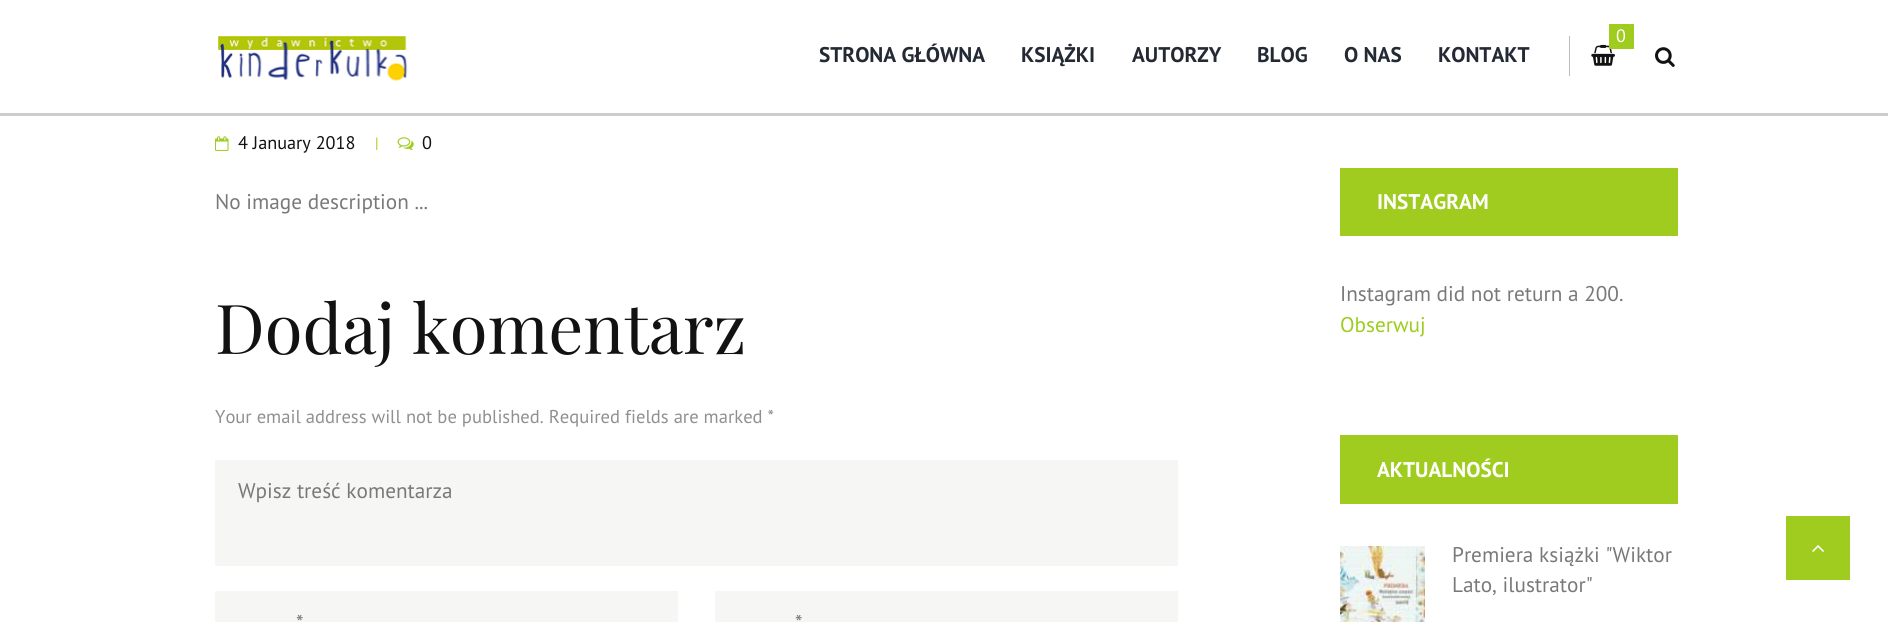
#include <cairo.h>
#include <math.h>
#include <stddef.h>


static void picture(cairo_t *cr, const char *path, double x, double y, double w, double h) {
    cairo_surface_t *image = cairo_image_surface_create_from_png(path);
    cairo_save(cr);
    cairo_set_source_surface(cr, image, x, y);
    cairo_rectangle(cr, x, y, w, h);
    cairo_fill(cr);
    cairo_restore(cr);
    cairo_surface_destroy(image);
}

int main(void) {
    cairo_surface_t *surface = cairo_image_surface_create(CAIRO_FORMAT_RGB24, 1892, 622);
    cairo_t *cr = cairo_create(surface);
    cairo_font_options_t *options = cairo_font_options_create();
    cairo_font_options_set_hint_metrics(options, CAIRO_HINT_METRICS_OFF);
    cairo_font_options_set_hint_style(options, CAIRO_HINT_STYLE_NONE);
    cairo_set_font_options(cr, options);
    cairo_set_miter_limit(cr, 4);
    cairo_set_source_rgb(cr, 1, 1, 1);
    cairo_paint(cr);
    cairo_set_source_rgb(cr, 0.8, 0.8, 0.8);
    cairo_new_path(cr);
    cairo_move_to(cr, -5, 4);
    cairo_line_to(cr, -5, 116);
    cairo_line_to(cr, 1888, 116);
    cairo_line_to(cr, 1888, 112);
    cairo_line_to(cr, 0, 112);
    cairo_line_to(cr, 0, 4);
    cairo_close_path(cr);
    cairo_fill(cr);
    cairo_set_source_rgb(cr, 1, 1, 1);
    cairo_rectangle(cr, 0, 112, 1888, 1);
    cairo_fill(cr);
    picture(cr, "img1.png", 218, 36, 190, 45);
    picture(cr, "img2.png", 1591, 44, 24, 22);
    cairo_set_source_rgb(cr, 0.624, 0.8, 0.122);
    cairo_rectangle(cr, 1609, 24, 25, 25);
    cairo_fill(cr);
    cairo_select_font_face(cr, "PT Sans", CAIRO_FONT_SLANT_NORMAL, CAIRO_FONT_WEIGHT_NORMAL);
    cairo_set_font_size(cr, 18);
    cairo_set_source_rgb(cr, 1, 1, 1);
    cairo_move_to(cr, 1616, 42);
    cairo_show_text(cr, "0");
    cairo_set_source_rgb(cr, 0.737, 0.737, 0.737);
    cairo_rectangle(cr, 1569, 36, 1, 40);
    cairo_fill(cr);
    cairo_select_font_face(cr, "PT Sans", CAIRO_FONT_SLANT_NORMAL, CAIRO_FONT_WEIGHT_BOLD);
    cairo_set_font_size(cr, 21.25);
    cairo_set_source_rgb(cr, 0.137, 0.165, 0.204);
    cairo_move_to(cr, 819, 62);
    cairo_show_text(cr, "STRONA GŁÓWNA");
    cairo_move_to(cr, 1021, 62);
    cairo_show_text(cr, "KSIĄŻKI");
    cairo_move_to(cr, 1132, 62);
    cairo_show_text(cr, "AUTORZY");
    cairo_move_to(cr, 1257, 62);
    cairo_show_text(cr, "BLOG");
    cairo_move_to(cr, 1344, 62);
    cairo_show_text(cr, "O NAS");
    cairo_move_to(cr, 1438, 62);
    cairo_show_text(cr, "KONTAKT");
    picture(cr, "img3.png", 1655, 47, 20, 20);
    picture(cr, "img4.png", 215, 136, 14, 15);
    cairo_select_font_face(cr, "PT Sans", CAIRO_FONT_SLANT_NORMAL, CAIRO_FONT_WEIGHT_NORMAL);
    cairo_set_font_size(cr, 18.25);
    cairo_set_source_rgb(cr, 0.071, 0.071, 0.071);
    cairo_move_to(cr, 238, 149);
    cairo_show_text(cr, "4 January 2018");
    cairo_set_font_size(cr, 15);
    cairo_set_source_rgb(cr, 0.624, 0.8, 0.122);
    cairo_move_to(cr, 375, 148);
    cairo_show_text(cr, "|");
    picture(cr, "img5.png", 397, 137, 17, 13);
    cairo_set_font_size(cr, 18.25);
    cairo_set_source_rgb(cr, 0.071, 0.071, 0.071);
    cairo_move_to(cr, 422, 149);
    cairo_show_text(cr, "0");
    cairo_set_font_size(cr, 21.25);
    cairo_set_source_rgb(cr, 0.475, 0.475, 0.475);
    cairo_move_to(cr, 215, 209);
    cairo_show_text(cr, "No image description ...");
    cairo_select_font_face(cr, "Playfair Display", CAIRO_FONT_SLANT_NORMAL, CAIRO_FONT_WEIGHT_NORMAL);
    cairo_set_font_size(cr, 68.75);
    cairo_set_source_rgb(cr, 0.071, 0.071, 0.071);
    cairo_move_to(cr, 215, 354);
    cairo_show_text(cr, "Dodaj komentarz");
    cairo_select_font_face(cr, "PT Sans", CAIRO_FONT_SLANT_NORMAL, CAIRO_FONT_WEIGHT_NORMAL);
    cairo_set_font_size(cr, 18.6);
    cairo_set_source_rgb(cr, 0.565, 0.565, 0.565);
    cairo_move_to(cr, 215, 423);
    cairo_show_text(cr, "Your email address will not be published. Required fields are marked *");
    cairo_set_source_rgb(cr, 0.961, 0.961, 0.957);
    cairo_rectangle(cr, 215, 460, 963, 106);
    cairo_fill(cr);
    cairo_set_font_size(cr, 21.25);
    cairo_set_source_rgb(cr, 0.475, 0.475, 0.475);
    cairo_move_to(cr, 238, 498);
    cairo_show_text(cr, "Wpisz treść komentarza");
    cairo_set_source_rgb(cr, 0.961, 0.961, 0.957);
    cairo_rectangle(cr, 215, 591, 463, 31);
    cairo_fill(cr);
    cairo_set_source_rgb(cr, 0.475, 0.475, 0.475);
    cairo_move_to(cr, 296, 630);
    cairo_show_text(cr, "*");
    cairo_set_source_rgb(cr, 0.961, 0.961, 0.957);
    cairo_rectangle(cr, 715, 591, 463, 31);
    cairo_fill(cr);
    cairo_set_source_rgb(cr, 0.475, 0.475, 0.475);
    cairo_move_to(cr, 795, 630);
    cairo_show_text(cr, "*");
    cairo_set_source_rgb(cr, 0.624, 0.8, 0.122);
    cairo_rectangle(cr, 1340, 168, 338, 68);
    cairo_fill(cr);
    cairo_select_font_face(cr, "PT Sans", CAIRO_FONT_SLANT_NORMAL, CAIRO_FONT_WEIGHT_BOLD);
    cairo_set_source_rgb(cr, 1, 1, 1);
    cairo_move_to(cr, 1377, 209);
    cairo_show_text(cr, "INSTAGRAM");
    cairo_select_font_face(cr, "PT Sans", CAIRO_FONT_SLANT_NORMAL, CAIRO_FONT_WEIGHT_NORMAL);
    cairo_set_source_rgb(cr, 0.475, 0.475, 0.475);
    cairo_move_to(cr, 1340, 301);
    cairo_show_text(cr, "Instagram did not return a 200.");
    cairo_set_source_rgb(cr, 0.624, 0.8, 0.122);
    cairo_move_to(cr, 1340, 332);
    cairo_show_text(cr, "Obserwuj");
    cairo_rectangle(cr, 1340, 435, 338, 69);
    cairo_fill(cr);
    cairo_select_font_face(cr, "PT Sans", CAIRO_FONT_SLANT_NORMAL, CAIRO_FONT_WEIGHT_BOLD);
    cairo_set_source_rgb(cr, 1, 1, 1);
    cairo_move_to(cr, 1377, 477);
    cairo_show_text(cr, "AKTUALNOŚCI");
    picture(cr, "img6.png", 1340, 546, 85, 76);
    cairo_select_font_face(cr, "PT Sans", CAIRO_FONT_SLANT_NORMAL, CAIRO_FONT_WEIGHT_NORMAL);
    cairo_set_source_rgb(cr, 0.475, 0.475, 0.475);
    cairo_move_to(cr, 1452, 562);
    cairo_show_text(cr, "Premiera książki \"Wiktor");
    cairo_move_to(cr, 1452, 592);
    cairo_show_text(cr, "Lato, ilustrator\"");
    cairo_set_source_rgb(cr, 0.624, 0.8, 0.122);
    cairo_rectangle(cr, 1786, 516, 64, 64);
    cairo_fill(cr);
    picture(cr, "img7.png", 1812, 545, 12, 7);
    cairo_surface_write_to_png(surface, "page.png");
    cairo_font_options_destroy(options);
    cairo_destroy(cr);
    cairo_surface_destroy(surface);
    return 0;
}
